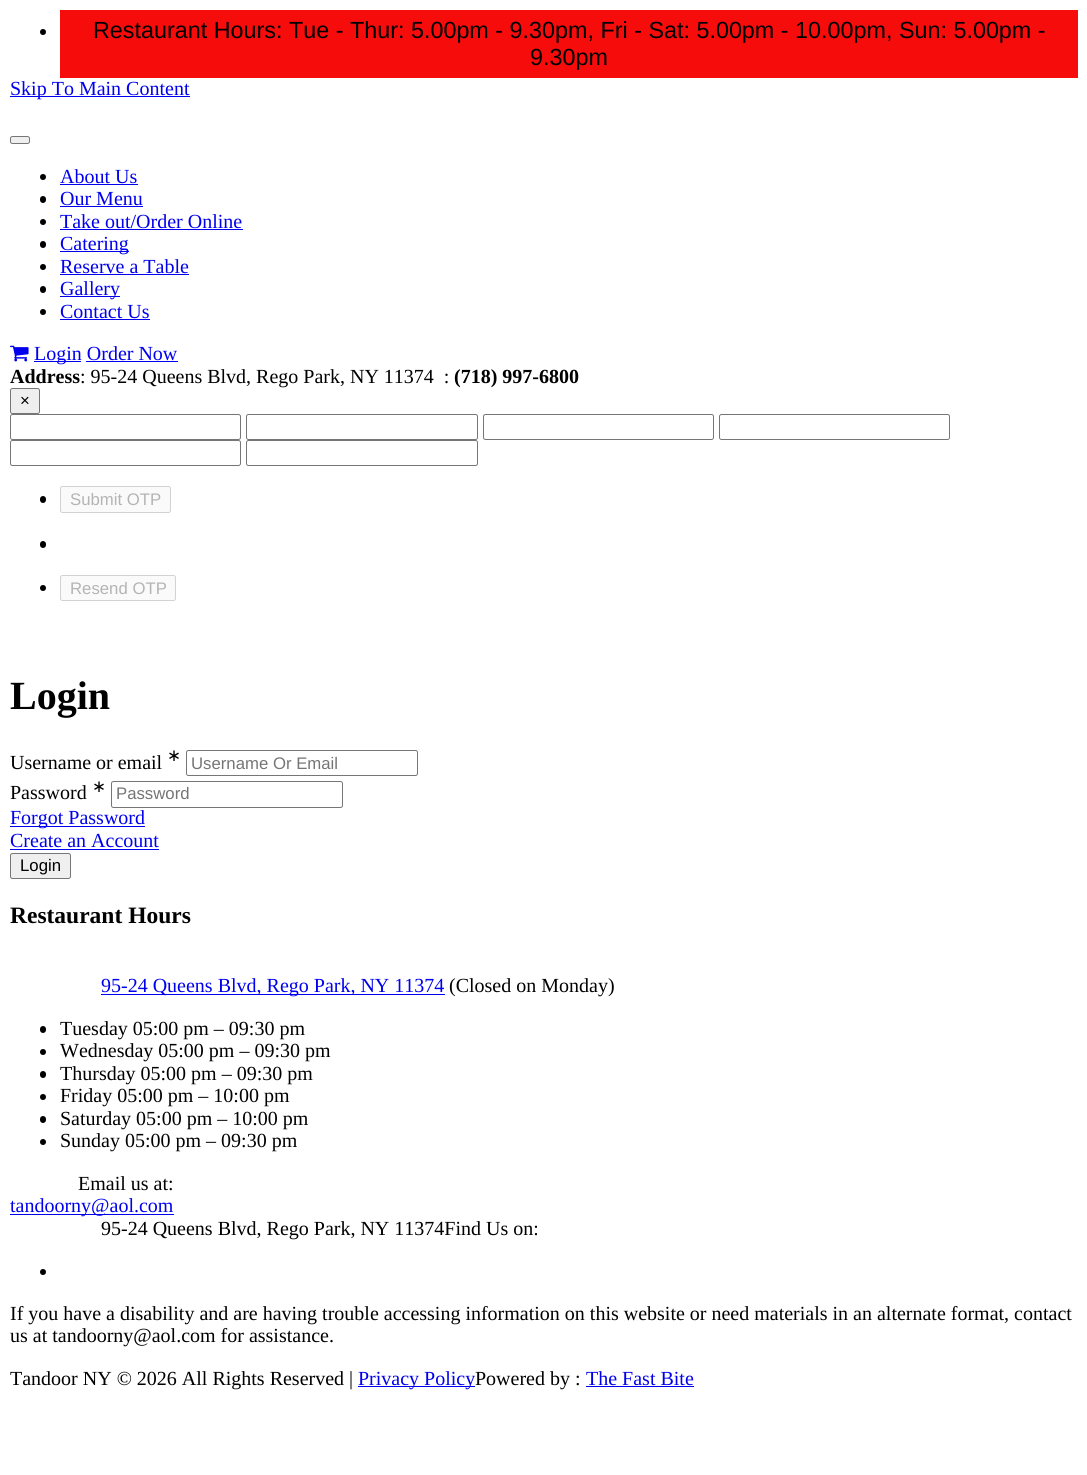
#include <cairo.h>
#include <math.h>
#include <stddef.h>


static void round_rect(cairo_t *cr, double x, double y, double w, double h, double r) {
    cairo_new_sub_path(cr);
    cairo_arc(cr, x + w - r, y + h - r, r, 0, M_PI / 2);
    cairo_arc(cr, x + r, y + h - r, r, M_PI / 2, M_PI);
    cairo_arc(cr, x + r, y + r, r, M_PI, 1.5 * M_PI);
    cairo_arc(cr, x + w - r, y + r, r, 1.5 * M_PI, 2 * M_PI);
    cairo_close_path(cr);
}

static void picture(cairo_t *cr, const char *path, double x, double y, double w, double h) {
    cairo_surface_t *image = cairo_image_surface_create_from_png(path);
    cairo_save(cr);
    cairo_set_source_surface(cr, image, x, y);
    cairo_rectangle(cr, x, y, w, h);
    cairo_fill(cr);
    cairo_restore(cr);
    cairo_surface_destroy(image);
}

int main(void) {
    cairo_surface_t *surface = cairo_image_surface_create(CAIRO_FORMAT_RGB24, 1087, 1475);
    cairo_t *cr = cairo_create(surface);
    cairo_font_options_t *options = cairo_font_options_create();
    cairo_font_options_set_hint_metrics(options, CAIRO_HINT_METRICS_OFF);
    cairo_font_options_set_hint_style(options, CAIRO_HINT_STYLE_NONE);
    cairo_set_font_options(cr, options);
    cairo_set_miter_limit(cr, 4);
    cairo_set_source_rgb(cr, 1, 1, 1);
    cairo_paint(cr);
    cairo_set_source_rgb(cr, 0.965, 0.047, 0.047);
    cairo_rectangle(cr, 60, 10, 1018, 68);
    cairo_fill(cr);
    cairo_set_source_rgb(cr, 0, 0, 0);
    cairo_arc(cr, 43, 32, 3, 0, 2 * M_PI);
    cairo_fill(cr);
    cairo_select_font_face(cr, "Liberation Sans", CAIRO_FONT_SLANT_NORMAL, CAIRO_FONT_WEIGHT_NORMAL);
    cairo_set_font_size(cr, 23.35);
    cairo_move_to(cr, 93, 38);
    cairo_show_text(cr, "Restaurant Hours: Tue - Thur: 5.00pm - 9.30pm, Fri - Sat: 5.00pm - 10.00pm, Sun: 5.00pm -");
    cairo_move_to(cr, 530, 65);
    cairo_show_text(cr, "9.30pm");
    cairo_set_source_rgb(cr, 0, 0, 0.933);
    cairo_rectangle(cr, 10, 96, 180, 1);
    cairo_fill(cr);
    cairo_select_font_face(cr, "Liberation Serif", CAIRO_FONT_SLANT_NORMAL, CAIRO_FONT_WEIGHT_NORMAL);
    cairo_set_font_size(cr, 20);
    cairo_move_to(cr, 10, 95);
    cairo_show_text(cr, "Skip To Main Content");
    cairo_set_source_rgb(cr, 0.937, 0.937, 0.937);
    round_rect(cr, 10.5, 136.5, 19, 7, 2);
    cairo_fill_preserve(cr);
    cairo_set_source_rgb(cr, 0.463, 0.463, 0.463);
    cairo_set_line_width(cr, 1);
    cairo_stroke(cr);
    cairo_set_source_rgb(cr, 0, 0, 0);
    cairo_arc(cr, 43, 177, 3, 0, 2 * M_PI);
    cairo_fill(cr);
    cairo_set_source_rgb(cr, 0, 0, 0.933);
    cairo_move_to(cr, 60, 183);
    cairo_show_text(cr, "About Us");
    cairo_rectangle(cr, 60, 184, 78, 1);
    cairo_fill(cr);
    cairo_set_source_rgb(cr, 0, 0, 0);
    round_rect(cr, 40, 196, 6, 7, 3);
    cairo_fill(cr);
    cairo_set_source_rgb(cr, 0, 0, 0.933);
    cairo_move_to(cr, 60, 205);
    cairo_show_text(cr, "Our Menu");
    cairo_rectangle(cr, 60, 206, 83, 1);
    cairo_fill(cr);
    cairo_set_source_rgb(cr, 0, 0, 0);
    cairo_arc(cr, 43, 222, 3, 0, 2 * M_PI);
    cairo_fill(cr);
    cairo_set_source_rgb(cr, 0, 0, 0.933);
    cairo_move_to(cr, 60, 228);
    cairo_show_text(cr, "Take out/Order Online");
    cairo_rectangle(cr, 60, 229, 183, 1);
    cairo_fill(cr);
    cairo_set_source_rgb(cr, 0, 0, 0);
    round_rect(cr, 40, 241, 6, 7, 3);
    cairo_fill(cr);
    cairo_set_source_rgb(cr, 0, 0, 0.933);
    cairo_rectangle(cr, 60, 251, 69, 1);
    cairo_fill(cr);
    cairo_move_to(cr, 60, 250);
    cairo_show_text(cr, "Catering");
    cairo_set_source_rgb(cr, 0, 0, 0);
    cairo_new_path(cr);
    cairo_arc(cr, 43, 267, 3, 0, 2 * M_PI);
    cairo_fill(cr);
    cairo_set_source_rgb(cr, 0, 0, 0.933);
    cairo_move_to(cr, 60, 273);
    cairo_show_text(cr, "Reserve a Table");
    cairo_rectangle(cr, 60, 274, 129, 1);
    cairo_fill(cr);
    cairo_set_source_rgb(cr, 0, 0, 0);
    round_rect(cr, 40, 286, 6, 7, 3);
    cairo_fill(cr);
    cairo_set_source_rgb(cr, 0, 0, 0.933);
    cairo_rectangle(cr, 60, 296, 60, 1);
    cairo_fill(cr);
    cairo_move_to(cr, 60, 295);
    cairo_show_text(cr, "Gallery");
    cairo_set_source_rgb(cr, 0, 0, 0);
    cairo_new_path(cr);
    cairo_arc(cr, 43, 312, 3, 0, 2 * M_PI);
    cairo_fill(cr);
    cairo_set_source_rgb(cr, 0, 0, 0.933);
    cairo_move_to(cr, 60, 318);
    cairo_show_text(cr, "Contact Us");
    cairo_rectangle(cr, 60, 319, 90, 1);
    cairo_fill(cr);
    picture(cr, "img1.png", 10, 345, 19, 17);
    cairo_rectangle(cr, 34, 361, 47, 1);
    cairo_fill(cr);
    cairo_move_to(cr, 34, 360);
    cairo_show_text(cr, "Login Order Now");
    cairo_rectangle(cr, 86, 361, 92, 1);
    cairo_fill(cr);
    cairo_select_font_face(cr, "Liberation Serif", CAIRO_FONT_SLANT_NORMAL, CAIRO_FONT_WEIGHT_BOLD);
    cairo_set_source_rgb(cr, 0, 0, 0);
    cairo_move_to(cr, 10, 383);
    cairo_show_text(cr, "Address");
    cairo_select_font_face(cr, "Liberation Serif", CAIRO_FONT_SLANT_NORMAL, CAIRO_FONT_WEIGHT_NORMAL);
    cairo_move_to(cr, 80, 383);
    cairo_show_text(cr, ": 95-24 Queens Blvd, Rego Park, NY 11374  :");
    cairo_select_font_face(cr, "Liberation Serif", CAIRO_FONT_SLANT_NORMAL, CAIRO_FONT_WEIGHT_BOLD);
    cairo_move_to(cr, 454, 383);
    cairo_show_text(cr, "(718) 997-6800");
    cairo_set_source_rgb(cr, 0.937, 0.937, 0.937);
    round_rect(cr, 10.5, 388.5, 29, 25, 2);
    cairo_fill_preserve(cr);
    cairo_set_source_rgb(cr, 0.463, 0.463, 0.463);
    cairo_stroke(cr);
    cairo_select_font_face(cr, "Liberation Sans", CAIRO_FONT_SLANT_NORMAL, CAIRO_FONT_WEIGHT_NORMAL);
    cairo_set_font_size(cr, 16.75);
    cairo_set_source_rgb(cr, 0, 0, 0);
    cairo_move_to(cr, 20, 406);
    cairo_show_text(cr, "×");
    round_rect(cr, 10.5, 414.5, 230, 25, 2);
    cairo_set_source_rgb(cr, 0.463, 0.463, 0.463);
    cairo_stroke(cr);
    round_rect(cr, 246.5, 414.5, 231, 25, 2);
    cairo_stroke(cr);
    round_rect(cr, 483.5, 414.5, 230, 25, 2);
    cairo_stroke(cr);
    round_rect(cr, 719.5, 414.5, 230, 25, 2);
    cairo_stroke(cr);
    round_rect(cr, 10.5, 440.5, 230, 25, 2);
    cairo_stroke(cr);
    round_rect(cr, 246.5, 440.5, 231, 25, 2);
    cairo_stroke(cr);
    cairo_set_source_rgb(cr, 0, 0, 0);
    round_rect(cr, 40, 496, 6, 7, 3);
    cairo_fill(cr);
    cairo_set_source_rgb(cr, 0.98, 0.98, 0.98);
    round_rect(cr, 60.5, 486.5, 110, 26, 2);
    cairo_fill_preserve(cr);
    cairo_set_source_rgb(cr, 0.824, 0.824, 0.824);
    cairo_stroke(cr);
    cairo_set_source_rgb(cr, 0.706, 0.706, 0.706);
    cairo_move_to(cr, 70, 505);
    cairo_show_text(cr, "Submit OTP");
    cairo_set_source_rgb(cr, 0, 0, 0);
    round_rect(cr, 40, 541, 6, 7, 3);
    cairo_fill(cr);
    cairo_arc(cr, 43, 588, 3, 0, 2 * M_PI);
    cairo_fill(cr);
    cairo_set_source_rgb(cr, 0.98, 0.98, 0.98);
    round_rect(cr, 60.5, 575.5, 115, 25, 2);
    cairo_fill_preserve(cr);
    cairo_set_source_rgb(cr, 0.824, 0.824, 0.824);
    cairo_stroke(cr);
    cairo_set_source_rgb(cr, 0.706, 0.706, 0.706);
    cairo_move_to(cr, 70, 594);
    cairo_show_text(cr, "Resend OTP");
    cairo_select_font_face(cr, "Liberation Serif", CAIRO_FONT_SLANT_NORMAL, CAIRO_FONT_WEIGHT_BOLD);
    cairo_set_font_size(cr, 40);
    cairo_set_source_rgb(cr, 0, 0, 0);
    cairo_move_to(cr, 10, 709);
    cairo_show_text(cr, "Login");
    cairo_select_font_face(cr, "Liberation Serif", CAIRO_FONT_SLANT_NORMAL, CAIRO_FONT_WEIGHT_NORMAL);
    cairo_set_font_size(cr, 20);
    cairo_move_to(cr, 10, 769);
    cairo_show_text(cr, "Username or email");
    cairo_select_font_face(cr, "DejaVu Sans", CAIRO_FONT_SLANT_NORMAL, CAIRO_FONT_WEIGHT_NORMAL);
    cairo_set_font_size(cr, 16.75);
    cairo_move_to(cr, 167, 761);
    cairo_show_text(cr, "∗");
    round_rect(cr, 186.5, 750.5, 231, 25, 2);
    cairo_set_source_rgb(cr, 0.463, 0.463, 0.463);
    cairo_stroke(cr);
    cairo_select_font_face(cr, "Liberation Sans", CAIRO_FONT_SLANT_NORMAL, CAIRO_FONT_WEIGHT_NORMAL);
    cairo_set_source_rgb(cr, 0.459, 0.459, 0.459);
    cairo_move_to(cr, 191, 769);
    cairo_show_text(cr, "Username Or Email");
    cairo_select_font_face(cr, "Liberation Serif", CAIRO_FONT_SLANT_NORMAL, CAIRO_FONT_WEIGHT_NORMAL);
    cairo_set_font_size(cr, 20);
    cairo_set_source_rgb(cr, 0, 0, 0);
    cairo_move_to(cr, 10, 799);
    cairo_show_text(cr, "Password");
    cairo_select_font_face(cr, "DejaVu Sans", CAIRO_FONT_SLANT_NORMAL, CAIRO_FONT_WEIGHT_NORMAL);
    cairo_set_font_size(cr, 16.75);
    cairo_move_to(cr, 92, 792);
    cairo_show_text(cr, "∗");
    round_rect(cr, 111.5, 781.5, 231, 26, 2);
    cairo_set_source_rgb(cr, 0.463, 0.463, 0.463);
    cairo_stroke(cr);
    cairo_select_font_face(cr, "Liberation Sans", CAIRO_FONT_SLANT_NORMAL, CAIRO_FONT_WEIGHT_NORMAL);
    cairo_set_source_rgb(cr, 0.459, 0.459, 0.459);
    cairo_move_to(cr, 116, 799);
    cairo_show_text(cr, "Password");
    cairo_set_source_rgb(cr, 0, 0, 0.933);
    cairo_rectangle(cr, 10, 826, 135, 1);
    cairo_fill(cr);
    cairo_select_font_face(cr, "Liberation Serif", CAIRO_FONT_SLANT_NORMAL, CAIRO_FONT_WEIGHT_NORMAL);
    cairo_set_font_size(cr, 20);
    cairo_move_to(cr, 10, 824);
    cairo_show_text(cr, "Forgot Password");
    cairo_move_to(cr, 10, 847);
    cairo_show_text(cr, "Create an Account");
    cairo_rectangle(cr, 10, 849, 149, 1);
    cairo_fill(cr);
    cairo_set_source_rgb(cr, 0.937, 0.937, 0.937);
    round_rect(cr, 10.5, 853.5, 60, 25, 2);
    cairo_fill_preserve(cr);
    cairo_set_source_rgb(cr, 0.463, 0.463, 0.463);
    cairo_stroke(cr);
    cairo_select_font_face(cr, "Liberation Sans", CAIRO_FONT_SLANT_NORMAL, CAIRO_FONT_WEIGHT_NORMAL);
    cairo_set_font_size(cr, 16.75);
    cairo_set_source_rgb(cr, 0, 0, 0);
    cairo_move_to(cr, 20, 871);
    cairo_show_text(cr, "Login");
    cairo_select_font_face(cr, "Liberation Serif", CAIRO_FONT_SLANT_NORMAL, CAIRO_FONT_WEIGHT_BOLD);
    cairo_set_font_size(cr, 23.5);
    cairo_move_to(cr, 10, 923);
    cairo_show_text(cr, "Restaurant Hours");
    cairo_set_source_rgb(cr, 0, 0, 0.933);
    cairo_rectangle(cr, 101, 994, 344, 1);
    cairo_fill(cr);
    cairo_select_font_face(cr, "Liberation Serif", CAIRO_FONT_SLANT_NORMAL, CAIRO_FONT_WEIGHT_NORMAL);
    cairo_set_font_size(cr, 20);
    cairo_move_to(cr, 101, 992);
    cairo_show_text(cr, "95-24 Queens Blvd, Rego Park, NY 11374");
    cairo_set_source_rgb(cr, 0, 0, 0);
    cairo_move_to(cr, 449, 992);
    cairo_show_text(cr, "(Closed on Monday)");
    round_rect(cr, 40, 1026, 6, 7, 3);
    cairo_fill(cr);
    cairo_move_to(cr, 60, 1035);
    cairo_show_text(cr, "Tuesday 05:00 pm – 09:30 pm");
    cairo_new_path(cr);
    cairo_arc(cr, 43, 1052, 3, 0, 2 * M_PI);
    cairo_fill(cr);
    cairo_move_to(cr, 60, 1057);
    cairo_show_text(cr, "Wednesday 05:00 pm – 09:30 pm");
    round_rect(cr, 40, 1071, 6, 7, 3);
    cairo_fill(cr);
    cairo_move_to(cr, 60, 1080);
    cairo_show_text(cr, "Thursday 05:00 pm – 09:30 pm");
    cairo_new_path(cr);
    cairo_arc(cr, 43, 1097, 3, 0, 2 * M_PI);
    cairo_fill(cr);
    cairo_move_to(cr, 60, 1102);
    cairo_show_text(cr, "Friday 05:00 pm – 10:00 pm");
    round_rect(cr, 40, 1116, 6, 7, 3);
    cairo_fill(cr);
    cairo_move_to(cr, 60, 1125);
    cairo_show_text(cr, "Saturday 05:00 pm – 10:00 pm");
    cairo_new_path(cr);
    cairo_arc(cr, 43, 1142, 3, 0, 2 * M_PI);
    cairo_fill(cr);
    cairo_move_to(cr, 60, 1147);
    cairo_show_text(cr, "Sunday 05:00 pm – 09:30 pm");
    cairo_move_to(cr, 78, 1190);
    cairo_show_text(cr, "Email us at:");
    cairo_set_source_rgb(cr, 0, 0, 0.933);
    cairo_rectangle(cr, 10, 1214, 164, 1);
    cairo_fill(cr);
    cairo_move_to(cr, 10, 1212);
    cairo_show_text(cr, "tandoorny@aol.com");
    cairo_set_source_rgb(cr, 0, 0, 0);
    cairo_move_to(cr, 101, 1235);
    cairo_show_text(cr, "95-24 Queens Blvd, Rego Park, NY 11374Find Us on:");
    cairo_new_path(cr);
    cairo_arc(cr, 43, 1272, 3, 0, 2 * M_PI);
    cairo_fill(cr);
    cairo_move_to(cr, 10, 1320);
    cairo_show_text(cr, "If you have a disability and are having trouble accessing information on this website or need materials in an alternate format, contact");
    cairo_move_to(cr, 10, 1342);
    cairo_show_text(cr, "us at tandoorny@aol.com for assistance.");
    cairo_move_to(cr, 10, 1385);
    cairo_show_text(cr, "Tandoor NY © 2026 All Rights Reserved |");
    cairo_set_source_rgb(cr, 0, 0, 0.933);
    cairo_rectangle(cr, 358, 1386, 117, 1);
    cairo_fill(cr);
    cairo_move_to(cr, 358, 1385);
    cairo_show_text(cr, "Privacy Policy");
    cairo_set_source_rgb(cr, 0, 0, 0);
    cairo_move_to(cr, 475, 1385);
    cairo_show_text(cr, "Powered by :");
    cairo_set_source_rgb(cr, 0, 0, 0.933);
    cairo_move_to(cr, 586, 1385);
    cairo_show_text(cr, "The Fast Bite");
    cairo_rectangle(cr, 586, 1386, 108, 1);
    cairo_fill(cr);
    cairo_surface_write_to_png(surface, "page.png");
    cairo_font_options_destroy(options);
    cairo_destroy(cr);
    cairo_surface_destroy(surface);
    return 0;
}
